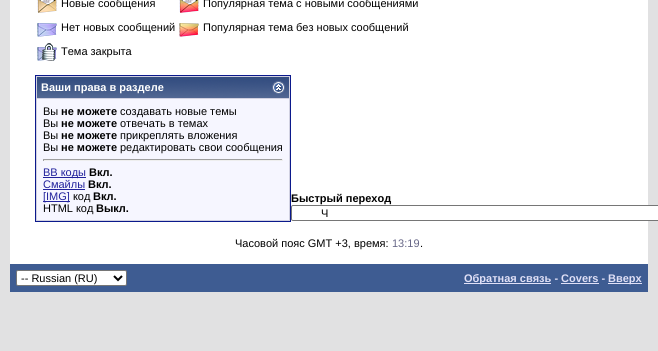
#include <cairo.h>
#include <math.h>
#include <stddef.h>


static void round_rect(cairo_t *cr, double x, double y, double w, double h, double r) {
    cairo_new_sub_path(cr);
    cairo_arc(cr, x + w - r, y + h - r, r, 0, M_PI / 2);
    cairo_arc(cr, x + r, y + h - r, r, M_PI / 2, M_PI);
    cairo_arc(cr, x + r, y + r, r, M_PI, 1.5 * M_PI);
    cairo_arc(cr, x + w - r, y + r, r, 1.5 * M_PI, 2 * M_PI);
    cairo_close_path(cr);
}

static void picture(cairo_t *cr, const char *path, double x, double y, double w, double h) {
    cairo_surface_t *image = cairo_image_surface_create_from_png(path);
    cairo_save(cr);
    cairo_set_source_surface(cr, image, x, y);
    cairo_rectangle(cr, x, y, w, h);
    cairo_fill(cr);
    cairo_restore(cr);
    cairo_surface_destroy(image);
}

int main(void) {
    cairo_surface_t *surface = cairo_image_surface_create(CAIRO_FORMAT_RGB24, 658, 351);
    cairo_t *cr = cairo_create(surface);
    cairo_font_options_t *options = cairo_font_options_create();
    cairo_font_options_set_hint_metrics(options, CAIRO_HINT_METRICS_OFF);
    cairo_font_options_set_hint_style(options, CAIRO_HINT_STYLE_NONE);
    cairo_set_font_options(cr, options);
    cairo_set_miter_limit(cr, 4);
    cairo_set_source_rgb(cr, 0.882, 0.882, 0.886);
    cairo_paint(cr);
    cairo_set_source_rgb(cr, 1, 1, 1);
    cairo_rectangle(cr, 10, 0, 638, 264);
    cairo_fill(cr);
    picture(cr, "img1.png", 37, 0, 20, 13);
    cairo_select_font_face(cr, "Liberation Sans", CAIRO_FONT_SLANT_NORMAL, CAIRO_FONT_WEIGHT_NORMAL);
    cairo_set_font_size(cr, 11);
    cairo_set_source_rgb(cr, 0, 0, 0);
    cairo_move_to(cr, 61, 7);
    cairo_show_text(cr, "Новые сообщения");
    picture(cr, "img2.png", 179, 0, 20, 13);
    cairo_move_to(cr, 203, 7);
    cairo_show_text(cr, "Популярная тема с новыми сообщениями");
    picture(cr, "img3.png", 37, 23, 20, 14);
    cairo_move_to(cr, 61, 31);
    cairo_show_text(cr, "Нет новых сообщений");
    picture(cr, "img4.png", 179, 23, 20, 14);
    cairo_move_to(cr, 203, 31);
    cairo_show_text(cr, "Популярная тема без новых сообщений");
    picture(cr, "img5.png", 37, 43, 20, 18);
    cairo_move_to(cr, 61, 55);
    cairo_show_text(cr, "Тема закрыта");
    cairo_set_source_rgb(cr, 0.82, 0.82, 0.882);
    cairo_rectangle(cr, 35.5, 75.5, 255, 146);
    cairo_fill_preserve(cr);
    cairo_set_source_rgb(cr, 0.043, 0.098, 0.549);
    cairo_set_line_width(cr, 1);
    cairo_stroke(cr);
    picture(cr, "img6.png", 37, 77, 252, 21);
    cairo_select_font_face(cr, "Liberation Sans", CAIRO_FONT_SLANT_NORMAL, CAIRO_FONT_WEIGHT_BOLD);
    cairo_set_source_rgb(cr, 1, 1, 1);
    cairo_move_to(cr, 41, 91);
    cairo_show_text(cr, "Ваши права в разделе");
    picture(cr, "img7.png", 272, 81, 13, 13);
    cairo_set_source_rgb(cr, 0.961, 0.961, 1);
    cairo_rectangle(cr, 37, 99, 252, 121);
    cairo_fill(cr);
    cairo_select_font_face(cr, "Liberation Sans", CAIRO_FONT_SLANT_NORMAL, CAIRO_FONT_WEIGHT_NORMAL);
    cairo_set_source_rgb(cr, 0, 0, 0);
    cairo_move_to(cr, 43, 115);
    cairo_show_text(cr, "Вы");
    cairo_select_font_face(cr, "Liberation Sans", CAIRO_FONT_SLANT_NORMAL, CAIRO_FONT_WEIGHT_BOLD);
    cairo_move_to(cr, 61, 115);
    cairo_show_text(cr, "не можете");
    cairo_select_font_face(cr, "Liberation Sans", CAIRO_FONT_SLANT_NORMAL, CAIRO_FONT_WEIGHT_NORMAL);
    cairo_move_to(cr, 120, 115);
    cairo_show_text(cr, "создавать новые темы");
    cairo_move_to(cr, 43, 127);
    cairo_show_text(cr, "Вы");
    cairo_select_font_face(cr, "Liberation Sans", CAIRO_FONT_SLANT_NORMAL, CAIRO_FONT_WEIGHT_BOLD);
    cairo_move_to(cr, 61, 127);
    cairo_show_text(cr, "не можете");
    cairo_select_font_face(cr, "Liberation Sans", CAIRO_FONT_SLANT_NORMAL, CAIRO_FONT_WEIGHT_NORMAL);
    cairo_move_to(cr, 120, 127);
    cairo_show_text(cr, "отвечать в темах");
    cairo_move_to(cr, 43, 139);
    cairo_show_text(cr, "Вы");
    cairo_select_font_face(cr, "Liberation Sans", CAIRO_FONT_SLANT_NORMAL, CAIRO_FONT_WEIGHT_BOLD);
    cairo_move_to(cr, 61, 139);
    cairo_show_text(cr, "не можете");
    cairo_select_font_face(cr, "Liberation Sans", CAIRO_FONT_SLANT_NORMAL, CAIRO_FONT_WEIGHT_NORMAL);
    cairo_move_to(cr, 120, 139);
    cairo_show_text(cr, "прикреплять вложения");
    cairo_move_to(cr, 43, 151);
    cairo_show_text(cr, "Вы");
    cairo_select_font_face(cr, "Liberation Sans", CAIRO_FONT_SLANT_NORMAL, CAIRO_FONT_WEIGHT_BOLD);
    cairo_move_to(cr, 61, 151);
    cairo_show_text(cr, "не можете");
    cairo_select_font_face(cr, "Liberation Sans", CAIRO_FONT_SLANT_NORMAL, CAIRO_FONT_WEIGHT_NORMAL);
    cairo_move_to(cr, 120, 151);
    cairo_show_text(cr, "редактировать свои сообщения");
    cairo_set_source_rgb(cr, 0.624, 0.624, 0.624);
    cairo_rectangle(cr, 43, 159, 240, 1);
    cairo_fill(cr);
    cairo_set_source_rgb(cr, 0.933, 0.933, 0.933);
    cairo_rectangle(cr, 282, 159, 1, 2);
    cairo_fill(cr);
    cairo_rectangle(cr, 43, 160, 240, 1);
    cairo_fill(cr);
    cairo_set_source_rgb(cr, 0.624, 0.624, 0.624);
    cairo_rectangle(cr, 43, 159, 1, 2);
    cairo_fill(cr);
    cairo_set_source_rgb(cr, 0.133, 0.133, 0.612);
    cairo_rectangle(cr, 43, 177, 43, 1);
    cairo_fill(cr);
    cairo_move_to(cr, 43, 176);
    cairo_show_text(cr, "BB коды");
    cairo_select_font_face(cr, "Liberation Sans", CAIRO_FONT_SLANT_NORMAL, CAIRO_FONT_WEIGHT_BOLD);
    cairo_set_source_rgb(cr, 0, 0, 0);
    cairo_move_to(cr, 89, 176);
    cairo_show_text(cr, "Вкл.");
    cairo_select_font_face(cr, "Liberation Sans", CAIRO_FONT_SLANT_NORMAL, CAIRO_FONT_WEIGHT_NORMAL);
    cairo_set_source_rgb(cr, 0.133, 0.133, 0.612);
    cairo_move_to(cr, 43, 188);
    cairo_show_text(cr, "Смайлы");
    cairo_rectangle(cr, 43, 189, 42, 1);
    cairo_fill(cr);
    cairo_select_font_face(cr, "Liberation Sans", CAIRO_FONT_SLANT_NORMAL, CAIRO_FONT_WEIGHT_BOLD);
    cairo_set_source_rgb(cr, 0, 0, 0);
    cairo_move_to(cr, 88, 188);
    cairo_show_text(cr, "Вкл.");
    cairo_set_source_rgb(cr, 0.133, 0.133, 0.612);
    cairo_rectangle(cr, 43, 201, 27, 1);
    cairo_fill(cr);
    cairo_select_font_face(cr, "Liberation Sans", CAIRO_FONT_SLANT_NORMAL, CAIRO_FONT_WEIGHT_NORMAL);
    cairo_move_to(cr, 43, 200);
    cairo_show_text(cr, "[IMG]");
    cairo_set_source_rgb(cr, 0, 0, 0);
    cairo_move_to(cr, 73, 200);
    cairo_show_text(cr, "код");
    cairo_select_font_face(cr, "Liberation Sans", CAIRO_FONT_SLANT_NORMAL, CAIRO_FONT_WEIGHT_BOLD);
    cairo_move_to(cr, 93, 200);
    cairo_show_text(cr, "Вкл.");
    cairo_select_font_face(cr, "Liberation Sans", CAIRO_FONT_SLANT_NORMAL, CAIRO_FONT_WEIGHT_NORMAL);
    cairo_move_to(cr, 43, 212);
    cairo_show_text(cr, "HTML код");
    cairo_select_font_face(cr, "Liberation Sans", CAIRO_FONT_SLANT_NORMAL, CAIRO_FONT_WEIGHT_BOLD);
    cairo_move_to(cr, 96, 212);
    cairo_show_text(cr, "Выкл.");
    cairo_move_to(cr, 291, 202);
    cairo_show_text(cr, "Быстрый переход");
    cairo_set_source_rgb(cr, 1, 1, 1);
    round_rect(cr, 291.5, 205.5, 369, 15, 1.5);
    cairo_fill_preserve(cr);
    cairo_set_source_rgb(cr, 0.463, 0.463, 0.463);
    cairo_stroke(cr);
    cairo_select_font_face(cr, "Liberation Sans", CAIRO_FONT_SLANT_NORMAL, CAIRO_FONT_WEIGHT_NORMAL);
    cairo_set_source_rgb(cr, 0, 0, 0);
    cairo_move_to(cr, 321, 217);
    cairo_show_text(cr, "Ч");
    cairo_move_to(cr, 235, 247);
    cairo_show_text(cr, "Часовой пояс GMT +3, время:");
    cairo_set_source_rgb(cr, 0.4, 0.4, 0.525);
    cairo_move_to(cr, 392, 247);
    cairo_show_text(cr, "13:19");
    cairo_set_source_rgb(cr, 0, 0, 0);
    cairo_move_to(cr, 420, 247);
    cairo_show_text(cr, ".");
    cairo_set_source_rgb(cr, 0.243, 0.361, 0.573);
    cairo_rectangle(cr, 10, 264, 638, 28);
    cairo_fill(cr);
    cairo_set_source_rgb(cr, 1, 1, 1);
    round_rect(cr, 16.5, 270.5, 110, 15, 1.5);
    cairo_fill_preserve(cr);
    cairo_set_source_rgb(cr, 0.463, 0.463, 0.463);
    cairo_stroke(cr);
    cairo_new_path(cr);
    cairo_move_to(cr, 114, 276);
    cairo_line_to(cr, 118, 280);
    cairo_line_to(cr, 122, 276);
    cairo_set_source_rgb(cr, 0, 0, 0);
    cairo_set_line_width(cr, 2);
    cairo_stroke(cr);
    cairo_move_to(cr, 21, 282);
    cairo_show_text(cr, "-- Russian (RU)");
    cairo_set_source_rgb(cr, 0.878, 0.878, 0.965);
    cairo_rectangle(cr, 464, 283, 87, 1);
    cairo_fill(cr);
    cairo_select_font_face(cr, "Liberation Sans", CAIRO_FONT_SLANT_NORMAL, CAIRO_FONT_WEIGHT_BOLD);
    cairo_move_to(cr, 464, 282);
    cairo_show_text(cr, "Обратная связь - Covers -");
    cairo_rectangle(cr, 561, 283, 38, 1);
    cairo_fill(cr);
    cairo_rectangle(cr, 608, 283, 34, 1);
    cairo_fill(cr);
    cairo_move_to(cr, 608, 282);
    cairo_show_text(cr, "Вверх");
    cairo_surface_write_to_png(surface, "page.png");
    cairo_font_options_destroy(options);
    cairo_destroy(cr);
    cairo_surface_destroy(surface);
    return 0;
}
